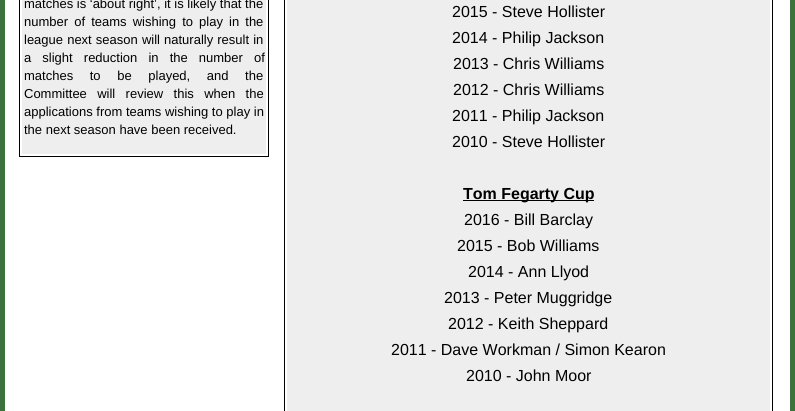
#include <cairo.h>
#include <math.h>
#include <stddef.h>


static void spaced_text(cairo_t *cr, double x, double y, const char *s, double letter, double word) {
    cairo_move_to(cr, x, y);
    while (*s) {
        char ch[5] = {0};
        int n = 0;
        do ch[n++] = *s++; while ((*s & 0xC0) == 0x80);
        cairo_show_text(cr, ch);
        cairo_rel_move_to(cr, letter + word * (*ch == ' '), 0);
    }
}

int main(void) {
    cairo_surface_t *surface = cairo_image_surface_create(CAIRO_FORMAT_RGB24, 795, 411);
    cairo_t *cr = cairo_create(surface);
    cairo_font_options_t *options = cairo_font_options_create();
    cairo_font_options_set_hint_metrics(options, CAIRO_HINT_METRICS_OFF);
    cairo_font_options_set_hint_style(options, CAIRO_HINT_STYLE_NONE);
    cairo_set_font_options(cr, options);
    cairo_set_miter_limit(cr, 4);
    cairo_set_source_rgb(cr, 0.235, 0.451, 0.235);
    cairo_paint(cr);
    cairo_set_source_rgb(cr, 1, 1, 1);
    cairo_rectangle(cr, 5, 0, 785, 411);
    cairo_fill(cr);
    cairo_rectangle(cr, 19.5, -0.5, 249, 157);
    cairo_set_source_rgb(cr, 0, 0, 0);
    cairo_set_line_width(cr, 1);
    cairo_stroke(cr);
    cairo_set_source_rgb(cr, 0.933, 0.933, 0.933);
    cairo_rectangle(cr, 22, 0, 244, 154);
    cairo_fill(cr);
    cairo_select_font_face(cr, "Liberation Sans", CAIRO_FONT_SLANT_NORMAL, CAIRO_FONT_WEIGHT_NORMAL);
    cairo_set_font_size(cr, 13);
    cairo_set_source_rgb(cr, 0, 0, 0);
    cairo_move_to(cr, 24, 8);
    cairo_show_text(cr, "matches is ‘about right’, it is likely that the");
    spaced_text(cr, 24, 26, "number of teams wishing to play in the", 0, 2.5);
    spaced_text(cr, 24, 44, "league next season will naturally result in", 0, 0.5);
    spaced_text(cr, 24, 62, "a slight reduction in the number of", 0, 7.5);
    spaced_text(cr, 24, 80, "matches to be played, and the", 0, 13);
    spaced_text(cr, 24, 98, "Committee will review this when the", 0, 6.75);
    cairo_move_to(cr, 24, 116);
    cairo_show_text(cr, "applications from teams wishing to play in");
    cairo_move_to(cr, 24, 134);
    cairo_show_text(cr, "the next season have been received.");
    cairo_rectangle(cr, 284.5, -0.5, 488, 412);
    cairo_stroke(cr);
    cairo_set_source_rgb(cr, 0.933, 0.933, 0.933);
    cairo_rectangle(cr, 287, 0, 483, 411);
    cairo_fill(cr);
    cairo_set_font_size(cr, 16);
    cairo_set_source_rgb(cr, 0, 0, 0);
    cairo_move_to(cr, 452, 17);
    cairo_show_text(cr, "2015 - Steve Hollister");
    cairo_move_to(cr, 452, 43);
    cairo_show_text(cr, "2014 - Philip Jackson");
    cairo_move_to(cr, 453, 69);
    cairo_show_text(cr, "2013 - Chris Williams");
    cairo_move_to(cr, 453, 95);
    cairo_show_text(cr, "2012 - Chris Williams");
    cairo_move_to(cr, 452, 121);
    cairo_show_text(cr, "2011 - Philip Jackson");
    cairo_move_to(cr, 452, 147);
    cairo_show_text(cr, "2010 - Steve Hollister");
    cairo_rectangle(cr, 463, 200, 131, 1);
    cairo_fill(cr);
    cairo_select_font_face(cr, "Liberation Sans", CAIRO_FONT_SLANT_NORMAL, CAIRO_FONT_WEIGHT_BOLD);
    cairo_move_to(cr, 463, 199);
    cairo_show_text(cr, "Tom Fegarty Cup");
    cairo_select_font_face(cr, "Liberation Sans", CAIRO_FONT_SLANT_NORMAL, CAIRO_FONT_WEIGHT_NORMAL);
    cairo_move_to(cr, 464, 225);
    cairo_show_text(cr, "2016 - Bill Barclay");
    cairo_move_to(cr, 457, 251);
    cairo_show_text(cr, "2015 - Bob Williams");
    cairo_move_to(cr, 468, 277);
    cairo_show_text(cr, "2014 - Ann Llyod");
    cairo_move_to(cr, 444, 303);
    cairo_show_text(cr, "2013 - Peter Muggridge");
    cairo_move_to(cr, 448, 329);
    cairo_show_text(cr, "2012 - Keith Sheppard");
    cairo_move_to(cr, 391, 355);
    cairo_show_text(cr, "2011 - Dave Workman / Simon Kearon");
    cairo_move_to(cr, 466, 381);
    cairo_show_text(cr, "2010 - John Moor");
    cairo_surface_write_to_png(surface, "page.png");
    cairo_font_options_destroy(options);
    cairo_destroy(cr);
    cairo_surface_destroy(surface);
    return 0;
}
